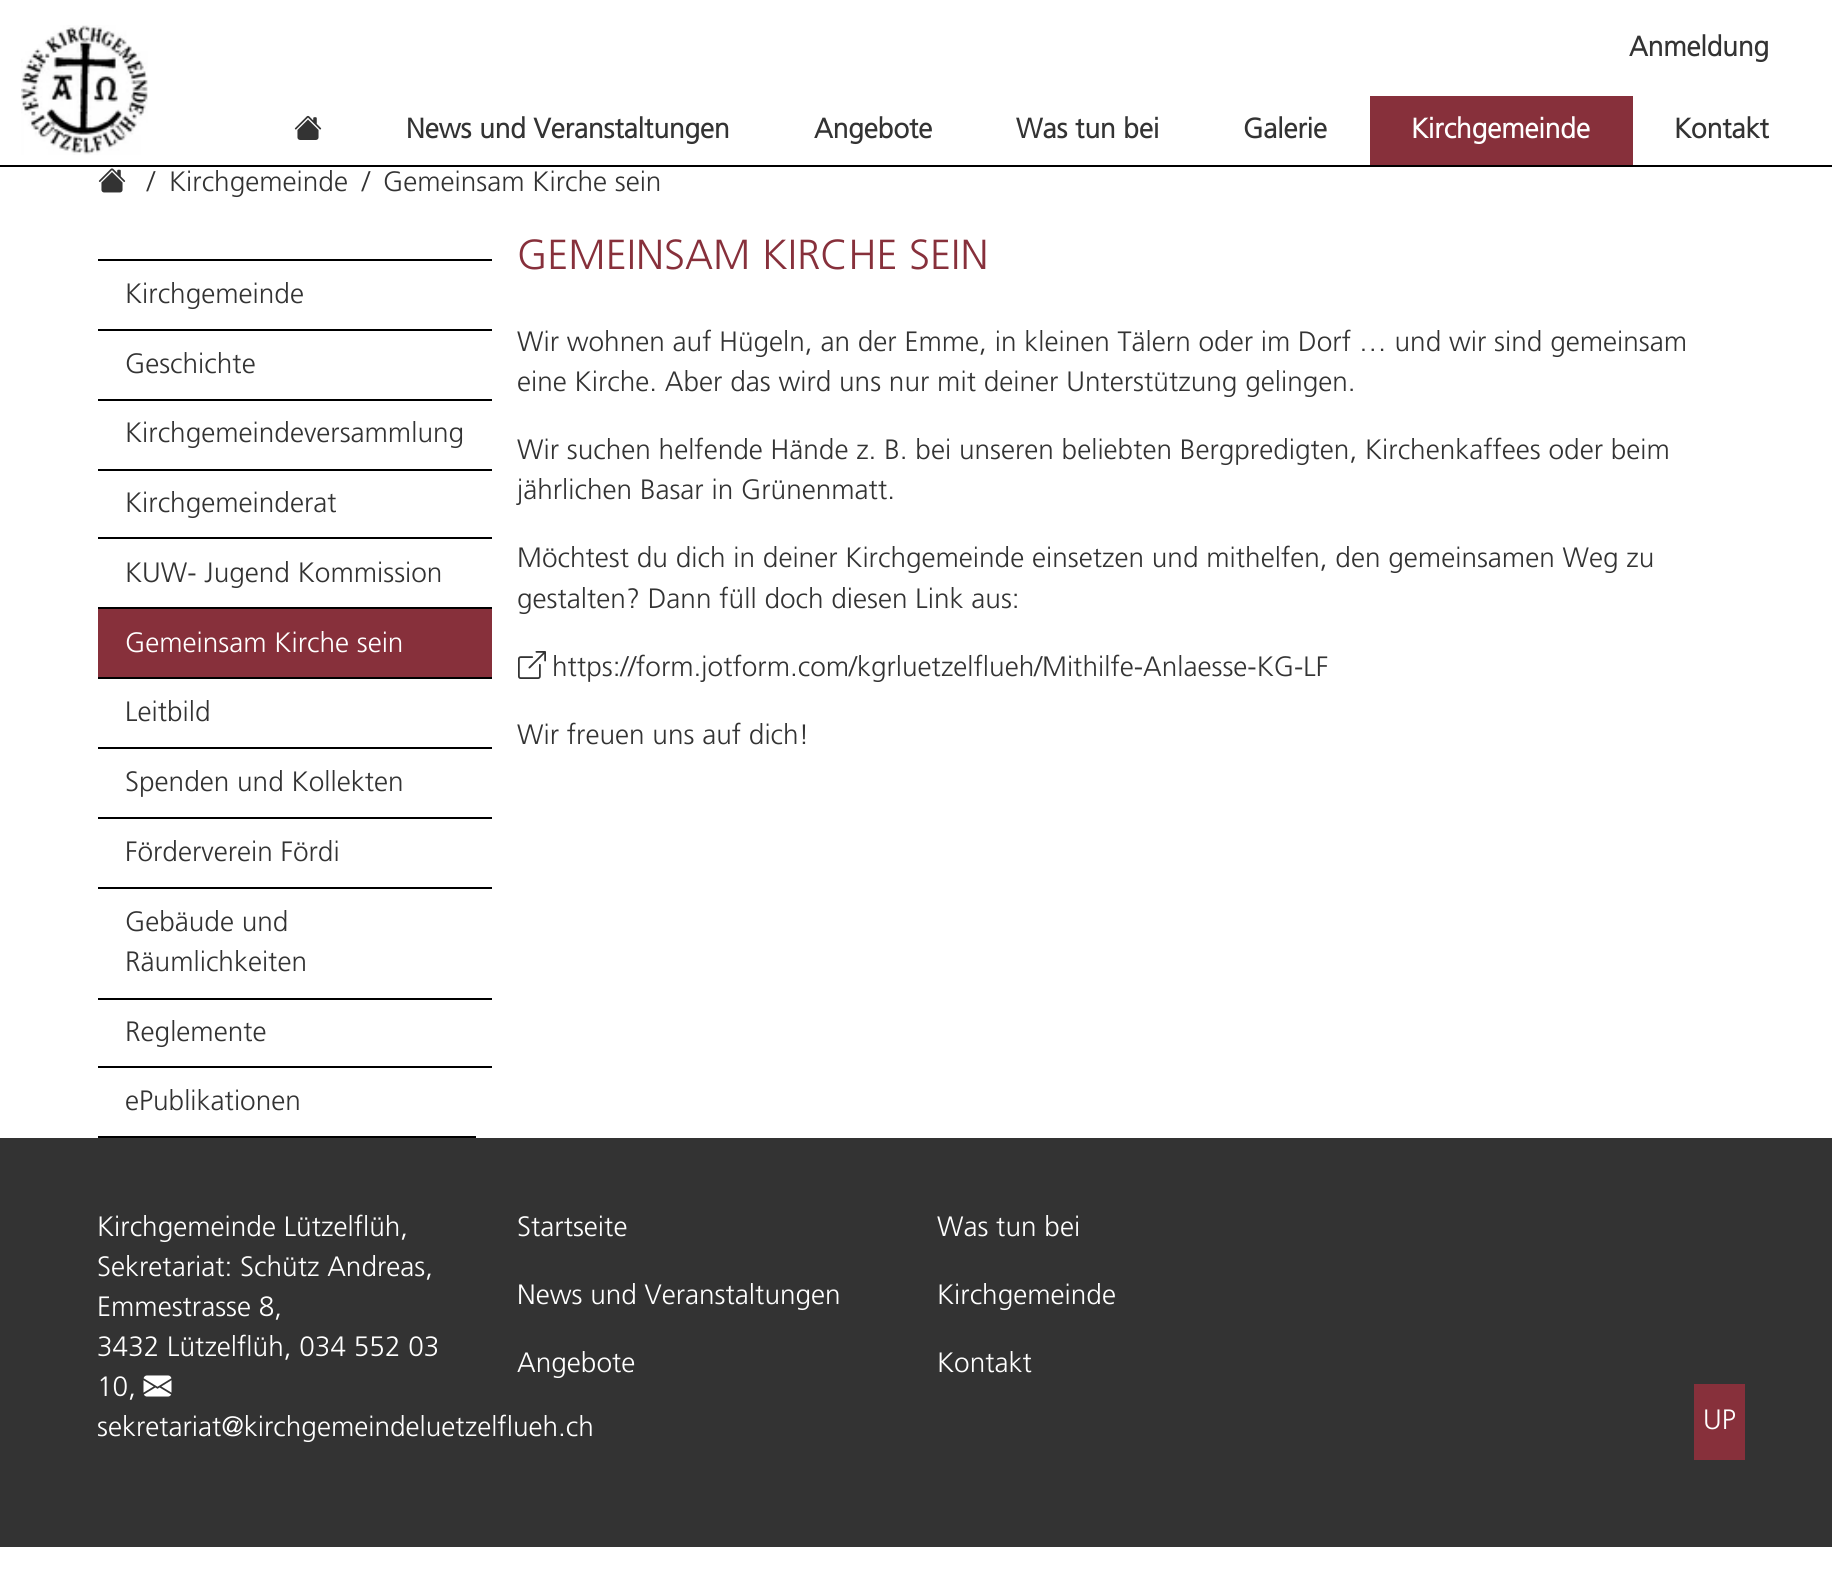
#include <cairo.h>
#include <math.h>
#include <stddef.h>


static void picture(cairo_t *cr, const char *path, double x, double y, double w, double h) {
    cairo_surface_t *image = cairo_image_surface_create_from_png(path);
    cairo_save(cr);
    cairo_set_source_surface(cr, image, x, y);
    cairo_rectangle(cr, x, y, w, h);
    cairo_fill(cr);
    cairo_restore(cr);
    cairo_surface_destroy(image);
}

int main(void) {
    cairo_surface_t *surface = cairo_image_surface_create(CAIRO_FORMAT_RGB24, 1832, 1590);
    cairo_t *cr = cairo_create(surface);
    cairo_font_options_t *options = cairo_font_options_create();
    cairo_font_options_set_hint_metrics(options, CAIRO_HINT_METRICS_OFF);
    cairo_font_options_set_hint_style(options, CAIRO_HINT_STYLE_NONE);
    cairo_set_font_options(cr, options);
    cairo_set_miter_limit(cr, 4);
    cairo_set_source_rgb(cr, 1, 1, 1);
    cairo_paint(cr);
    cairo_set_source_rgb(cr, 0, 0, 0);
    cairo_rectangle(cr, 0, 165, 1832, 2);
    cairo_fill(cr);
    picture(cr, "img1.png", 21, 25, 127, 130);
    cairo_select_font_face(cr, "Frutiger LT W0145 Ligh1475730", CAIRO_FONT_SLANT_NORMAL, CAIRO_FONT_WEIGHT_BOLD);
    cairo_set_font_size(cr, 28);
    cairo_set_source_rgb(cr, 0.2, 0.2, 0.2);
    cairo_move_to(cr, 1629, 56);
    cairo_show_text(cr, "Anmeldung");
    picture(cr, "img2.png", 294, 115, 28, 25);
    cairo_move_to(cr, 406, 138);
    cairo_show_text(cr, "News und Veranstaltungen");
    cairo_move_to(cr, 814, 138);
    cairo_show_text(cr, "Angebote");
    cairo_move_to(cr, 1016, 138);
    cairo_show_text(cr, "Was tun bei");
    cairo_move_to(cr, 1243, 138);
    cairo_show_text(cr, "Galerie");
    cairo_set_source_rgb(cr, 0.529, 0.188, 0.231);
    cairo_rectangle(cr, 1370, 96, 263, 69);
    cairo_fill(cr);
    cairo_set_source_rgb(cr, 1, 1, 1);
    cairo_move_to(cr, 1411, 138);
    cairo_show_text(cr, "Kirchgemeinde");
    cairo_set_source_rgb(cr, 0.2, 0.2, 0.2);
    cairo_move_to(cr, 1674, 138);
    cairo_show_text(cr, "Kontakt");
    picture(cr, "img3.png", 98, 168, 28, 25);
    cairo_select_font_face(cr, "Frutiger LT W0145 Ligh1475730 Light", CAIRO_FONT_SLANT_NORMAL, CAIRO_FONT_WEIGHT_NORMAL);
    cairo_move_to(cr, 147, 191);
    cairo_show_text(cr, "/");
    cairo_move_to(cr, 169, 191);
    cairo_show_text(cr, "Kirchgemeinde");
    cairo_move_to(cr, 362, 191);
    cairo_show_text(cr, "/");
    cairo_move_to(cr, 383, 191);
    cairo_show_text(cr, "Gemeinsam Kirche sein");
    cairo_set_source_rgb(cr, 0, 0, 0);
    cairo_rectangle(cr, 98, 1136, 378, 2);
    cairo_fill(cr);
    cairo_rectangle(cr, 98, 259, 394, 2);
    cairo_fill(cr);
    cairo_set_source_rgb(cr, 0.2, 0.2, 0.2);
    cairo_move_to(cr, 125, 303);
    cairo_show_text(cr, "Kirchgemeinde");
    cairo_set_source_rgb(cr, 0, 0, 0);
    cairo_rectangle(cr, 98, 329, 394, 2);
    cairo_fill(cr);
    cairo_set_source_rgb(cr, 0.2, 0.2, 0.2);
    cairo_move_to(cr, 125, 373);
    cairo_show_text(cr, "Geschichte");
    cairo_set_source_rgb(cr, 0, 0, 0);
    cairo_rectangle(cr, 98, 399, 394, 2);
    cairo_fill(cr);
    cairo_set_source_rgb(cr, 0.2, 0.2, 0.2);
    cairo_move_to(cr, 125, 442);
    cairo_show_text(cr, "Kirchgemeindeversammlung");
    cairo_set_source_rgb(cr, 0, 0, 0);
    cairo_rectangle(cr, 98, 469, 394, 2);
    cairo_fill(cr);
    cairo_set_source_rgb(cr, 0.2, 0.2, 0.2);
    cairo_move_to(cr, 125, 512);
    cairo_show_text(cr, "Kirchgemeinderat");
    cairo_set_source_rgb(cr, 0, 0, 0);
    cairo_rectangle(cr, 98, 537, 394, 2);
    cairo_fill(cr);
    cairo_set_source_rgb(cr, 0.2, 0.2, 0.2);
    cairo_move_to(cr, 125, 582);
    cairo_show_text(cr, "KUW- Jugend Kommission");
    cairo_set_source_rgb(cr, 0, 0, 0);
    cairo_rectangle(cr, 98, 607, 394, 2);
    cairo_fill(cr);
    cairo_set_source_rgb(cr, 0.529, 0.188, 0.231);
    cairo_rectangle(cr, 98, 609, 394, 68);
    cairo_fill(cr);
    cairo_set_source_rgb(cr, 1, 1, 1);
    cairo_move_to(cr, 125, 652);
    cairo_show_text(cr, "Gemeinsam Kirche sein");
    cairo_set_source_rgb(cr, 0, 0, 0);
    cairo_rectangle(cr, 98, 677, 394, 2);
    cairo_fill(cr);
    cairo_set_source_rgb(cr, 0.2, 0.2, 0.2);
    cairo_move_to(cr, 125, 721);
    cairo_show_text(cr, "Leitbild");
    cairo_set_source_rgb(cr, 0, 0, 0);
    cairo_rectangle(cr, 98, 747, 394, 2);
    cairo_fill(cr);
    cairo_set_source_rgb(cr, 0.2, 0.2, 0.2);
    cairo_move_to(cr, 125, 791);
    cairo_show_text(cr, "Spenden und Kollekten");
    cairo_set_source_rgb(cr, 0, 0, 0);
    cairo_rectangle(cr, 98, 817, 394, 2);
    cairo_fill(cr);
    cairo_set_source_rgb(cr, 0.2, 0.2, 0.2);
    cairo_move_to(cr, 125, 861);
    cairo_show_text(cr, "Förderverein Fördi");
    cairo_set_source_rgb(cr, 0, 0, 0);
    cairo_rectangle(cr, 98, 887, 394, 2);
    cairo_fill(cr);
    cairo_set_source_rgb(cr, 0.2, 0.2, 0.2);
    cairo_move_to(cr, 125, 931);
    cairo_show_text(cr, "Gebäude und");
    cairo_move_to(cr, 125, 971);
    cairo_show_text(cr, "Räumlichkeiten");
    cairo_set_source_rgb(cr, 0, 0, 0);
    cairo_rectangle(cr, 98, 998, 394, 2);
    cairo_fill(cr);
    cairo_set_source_rgb(cr, 0.2, 0.2, 0.2);
    cairo_move_to(cr, 125, 1041);
    cairo_show_text(cr, "Reglemente");
    cairo_set_source_rgb(cr, 0, 0, 0);
    cairo_rectangle(cr, 98, 1066, 394, 2);
    cairo_fill(cr);
    cairo_set_source_rgb(cr, 0.2, 0.2, 0.2);
    cairo_move_to(cr, 125, 1110);
    cairo_show_text(cr, "ePublikationen");
    cairo_set_font_size(cr, 42);
    cairo_set_source_rgb(cr, 0.529, 0.188, 0.231);
    cairo_move_to(cr, 517, 269);
    cairo_show_text(cr, "GEMEINSAM KIRCHE SEIN");
    cairo_set_font_size(cr, 28);
    cairo_set_source_rgb(cr, 0.2, 0.2, 0.2);
    cairo_move_to(cr, 517, 351);
    cairo_show_text(cr, "Wir wohnen auf Hügeln, an der Emme, in kleinen Tälern oder im Dorf … und wir sind gemeinsam");
    cairo_move_to(cr, 517, 391);
    cairo_show_text(cr, "eine Kirche. Aber das wird uns nur mit deiner Unterstützung gelingen.");
    cairo_move_to(cr, 517, 459);
    cairo_show_text(cr, "Wir suchen helfende Hände z. B. bei unseren beliebten Bergpredigten, Kirchenkaffees oder beim");
    cairo_move_to(cr, 517, 499);
    cairo_show_text(cr, "jährlichen Basar in Grünenmatt.");
    cairo_move_to(cr, 517, 567);
    cairo_show_text(cr, "Möchtest du dich in deiner Kirchgemeinde einsetzen und mithelfen, den gemeinsamen Weg zu");
    cairo_move_to(cr, 517, 608);
    cairo_show_text(cr, "gestalten? Dann füll doch diesen Link aus:");
    picture(cr, "img4.png", 518, 651, 28, 28);
    cairo_move_to(cr, 552, 676);
    cairo_show_text(cr, "https://form.jotform.com/kgrluetzelflueh/Mithilfe-Anlaesse-KG-LF");
    cairo_move_to(cr, 517, 744);
    cairo_show_text(cr, "Wir freuen uns auf dich!");
    cairo_rectangle(cr, 0, 1138, 1832, 409);
    cairo_fill(cr);
    cairo_set_source_rgb(cr, 1, 1, 1);
    cairo_move_to(cr, 97, 1236);
    cairo_show_text(cr, "Kirchgemeinde Lützelflüh,");
    cairo_move_to(cr, 97, 1276);
    cairo_show_text(cr, "Sekretariat: Schütz Andreas,");
    cairo_move_to(cr, 97, 1316);
    cairo_show_text(cr, "Emmestrasse 8,");
    cairo_move_to(cr, 97, 1356);
    cairo_show_text(cr, "3432 Lützelflüh, 034 552 03");
    cairo_move_to(cr, 97, 1396);
    cairo_show_text(cr, "10,");
    picture(cr, "img5.png", 143, 1375, 29, 22);
    cairo_move_to(cr, 97, 1436);
    cairo_show_text(cr, "sekretariat@kirchgemeindeluetzelflueh.ch");
    cairo_move_to(cr, 517, 1236);
    cairo_show_text(cr, "Startseite");
    cairo_move_to(cr, 517, 1304);
    cairo_show_text(cr, "News und Veranstaltungen");
    cairo_move_to(cr, 517, 1372);
    cairo_show_text(cr, "Angebote");
    cairo_move_to(cr, 937, 1236);
    cairo_show_text(cr, "Was tun bei");
    cairo_move_to(cr, 937, 1304);
    cairo_show_text(cr, "Kirchgemeinde");
    cairo_move_to(cr, 937, 1372);
    cairo_show_text(cr, "Kontakt");
    cairo_set_source_rgb(cr, 0.529, 0.188, 0.231);
    cairo_rectangle(cr, 1694, 1384, 51, 76);
    cairo_fill(cr);
    cairo_set_source_rgb(cr, 1, 1, 1);
    cairo_move_to(cr, 1703, 1429);
    cairo_show_text(cr, "UP");
    cairo_surface_write_to_png(surface, "page.png");
    cairo_font_options_destroy(options);
    cairo_destroy(cr);
    cairo_surface_destroy(surface);
    return 0;
}
